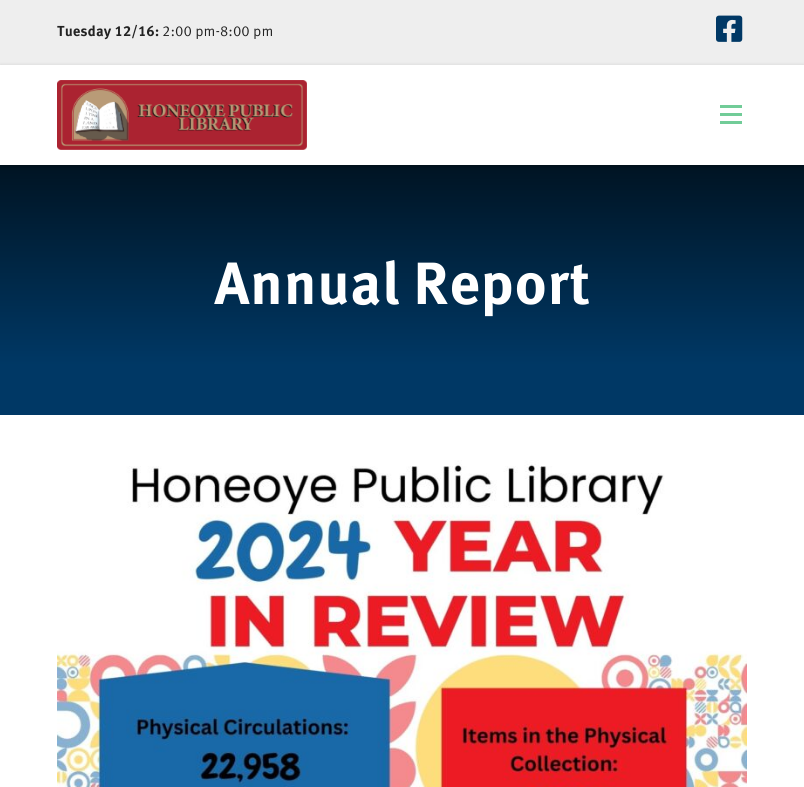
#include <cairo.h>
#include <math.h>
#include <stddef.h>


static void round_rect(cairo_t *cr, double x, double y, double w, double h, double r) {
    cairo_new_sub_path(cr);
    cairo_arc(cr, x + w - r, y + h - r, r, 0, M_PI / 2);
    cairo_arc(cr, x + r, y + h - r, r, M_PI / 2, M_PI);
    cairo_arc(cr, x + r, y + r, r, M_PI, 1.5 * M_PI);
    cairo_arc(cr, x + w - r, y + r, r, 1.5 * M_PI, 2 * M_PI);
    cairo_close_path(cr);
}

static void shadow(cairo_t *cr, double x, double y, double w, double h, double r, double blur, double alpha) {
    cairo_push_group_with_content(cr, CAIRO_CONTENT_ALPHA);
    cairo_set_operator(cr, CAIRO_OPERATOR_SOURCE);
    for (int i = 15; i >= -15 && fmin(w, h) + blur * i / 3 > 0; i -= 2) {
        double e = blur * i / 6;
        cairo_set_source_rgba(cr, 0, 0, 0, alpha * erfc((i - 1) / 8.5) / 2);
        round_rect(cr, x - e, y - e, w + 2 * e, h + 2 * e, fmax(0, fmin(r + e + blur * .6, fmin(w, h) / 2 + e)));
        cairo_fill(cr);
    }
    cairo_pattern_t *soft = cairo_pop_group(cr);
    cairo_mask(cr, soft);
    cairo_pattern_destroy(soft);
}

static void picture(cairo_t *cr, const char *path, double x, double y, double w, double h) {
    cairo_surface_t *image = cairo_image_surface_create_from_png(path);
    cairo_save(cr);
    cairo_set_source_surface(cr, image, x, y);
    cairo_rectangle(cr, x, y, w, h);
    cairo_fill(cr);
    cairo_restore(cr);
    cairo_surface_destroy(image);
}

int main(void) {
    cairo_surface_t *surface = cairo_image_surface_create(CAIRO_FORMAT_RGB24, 804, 787);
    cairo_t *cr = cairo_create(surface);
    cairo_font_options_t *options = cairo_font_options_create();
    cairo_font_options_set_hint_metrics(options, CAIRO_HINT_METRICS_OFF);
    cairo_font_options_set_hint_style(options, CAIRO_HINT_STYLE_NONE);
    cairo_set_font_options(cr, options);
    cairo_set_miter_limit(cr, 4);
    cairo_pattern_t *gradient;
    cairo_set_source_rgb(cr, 1, 1, 1);
    cairo_paint(cr);
    cairo_set_source_rgb(cr, 0.933, 0.933, 0.933);
    cairo_rectangle(cr, 0, 0, 804, 65);
    cairo_fill(cr);
    cairo_select_font_face(cr, "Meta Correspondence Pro", CAIRO_FONT_SLANT_NORMAL, CAIRO_FONT_WEIGHT_BOLD);
    cairo_set_font_size(cr, 14.5);
    cairo_set_source_rgb(cr, 0.133, 0.133, 0.133);
    cairo_move_to(cr, 57, 36);
    cairo_show_text(cr, "Tuesday 12/16:");
    cairo_select_font_face(cr, "Meta Correspondence Pro", CAIRO_FONT_SLANT_NORMAL, CAIRO_FONT_WEIGHT_NORMAL);
    cairo_move_to(cr, 162, 36);
    cairo_show_text(cr, "2:00 pm-8:00 pm");
    picture(cr, "img1.png", 716, 15, 27, 27);
    gradient = cairo_pattern_create_linear(402, 165, 402, 365);
    cairo_pattern_add_color_stop_rgba(gradient, 0, 0, 0.078, 0.137, 1);
    cairo_pattern_add_color_stop_rgba(gradient, 1, 0, 0.22, 0.396, 1);
    cairo_set_source(cr, gradient);
    cairo_pattern_destroy(gradient);
    cairo_rectangle(cr, 0, 165, 804, 200);
    cairo_fill(cr);
    cairo_save(cr);
    cairo_set_fill_rule(cr, CAIRO_FILL_RULE_EVEN_ODD);
    cairo_new_path(cr);
    cairo_move_to(cr, 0, 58);
    cairo_line_to(cr, 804, 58);
    cairo_line_to(cr, 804, 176);
    cairo_line_to(cr, 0, 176);
    cairo_close_path(cr);
    cairo_move_to(cr, 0, 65);
    cairo_line_to(cr, 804, 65);
    cairo_line_to(cr, 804, 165);
    cairo_line_to(cr, 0, 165);
    cairo_close_path(cr);
    cairo_clip(cr);
    cairo_set_source_rgb(cr, 0, 0, 0);
    shadow(cr, 0, 67, 804, 100, 0, 2.5, 0.3);
    cairo_restore(cr);
    picture(cr, "img2.png", 57, 80, 250, 70);
    cairo_set_source_rgb(cr, 0.443, 0.8, 0.596);
    cairo_rectangle(cr, 720, 113, 22, 3);
    cairo_fill(cr);
    cairo_rectangle(cr, 720, 105, 22, 3);
    cairo_fill(cr);
    cairo_rectangle(cr, 720, 121, 22, 3);
    cairo_fill(cr);
    cairo_set_source_rgb(cr, 0, 0.22, 0.396);
    cairo_rectangle(cr, 0, 365, 804, 50);
    cairo_fill(cr);
    cairo_select_font_face(cr, "Meta Correspondence Pro", CAIRO_FONT_SLANT_NORMAL, CAIRO_FONT_WEIGHT_BOLD);
    cairo_set_font_size(cr, 59.5);
    cairo_set_source_rgb(cr, 1, 1, 1);
    cairo_move_to(cr, 214, 304);
    cairo_show_text(cr, "Annual Report");
    picture(cr, "img3.png", 57, 460, 690, 327);
    cairo_surface_write_to_png(surface, "page.png");
    cairo_font_options_destroy(options);
    cairo_destroy(cr);
    cairo_surface_destroy(surface);
    return 0;
}
